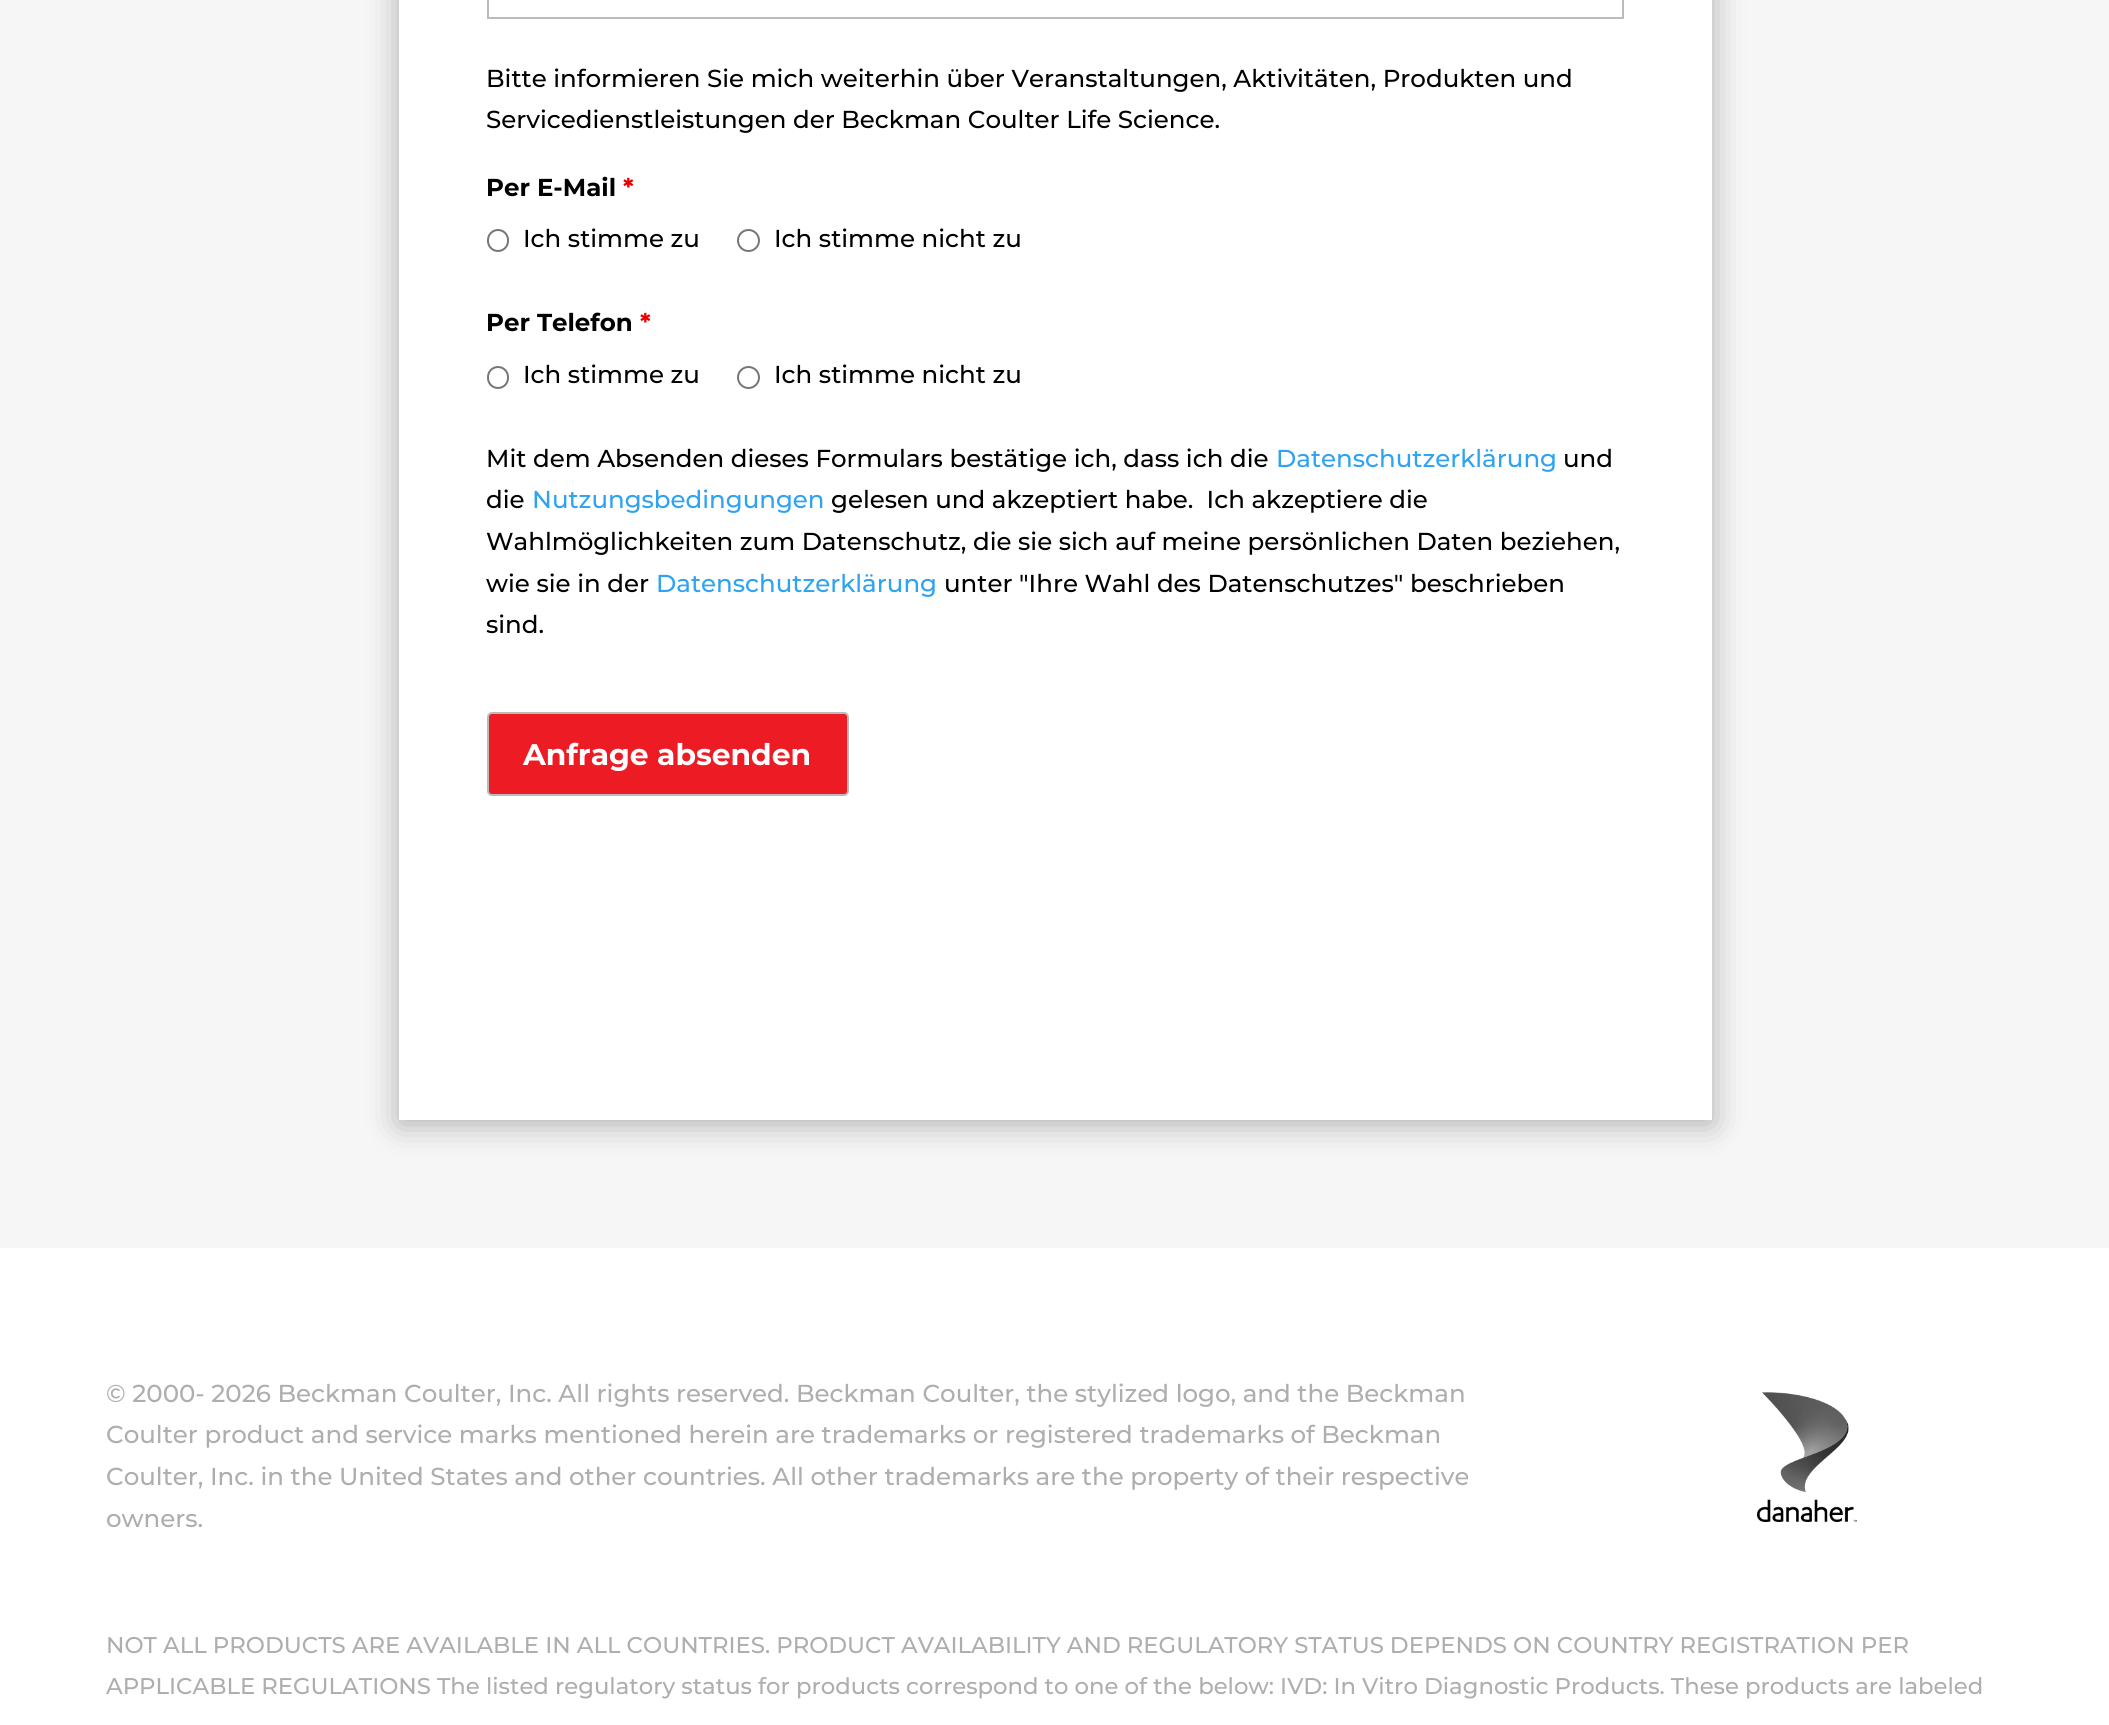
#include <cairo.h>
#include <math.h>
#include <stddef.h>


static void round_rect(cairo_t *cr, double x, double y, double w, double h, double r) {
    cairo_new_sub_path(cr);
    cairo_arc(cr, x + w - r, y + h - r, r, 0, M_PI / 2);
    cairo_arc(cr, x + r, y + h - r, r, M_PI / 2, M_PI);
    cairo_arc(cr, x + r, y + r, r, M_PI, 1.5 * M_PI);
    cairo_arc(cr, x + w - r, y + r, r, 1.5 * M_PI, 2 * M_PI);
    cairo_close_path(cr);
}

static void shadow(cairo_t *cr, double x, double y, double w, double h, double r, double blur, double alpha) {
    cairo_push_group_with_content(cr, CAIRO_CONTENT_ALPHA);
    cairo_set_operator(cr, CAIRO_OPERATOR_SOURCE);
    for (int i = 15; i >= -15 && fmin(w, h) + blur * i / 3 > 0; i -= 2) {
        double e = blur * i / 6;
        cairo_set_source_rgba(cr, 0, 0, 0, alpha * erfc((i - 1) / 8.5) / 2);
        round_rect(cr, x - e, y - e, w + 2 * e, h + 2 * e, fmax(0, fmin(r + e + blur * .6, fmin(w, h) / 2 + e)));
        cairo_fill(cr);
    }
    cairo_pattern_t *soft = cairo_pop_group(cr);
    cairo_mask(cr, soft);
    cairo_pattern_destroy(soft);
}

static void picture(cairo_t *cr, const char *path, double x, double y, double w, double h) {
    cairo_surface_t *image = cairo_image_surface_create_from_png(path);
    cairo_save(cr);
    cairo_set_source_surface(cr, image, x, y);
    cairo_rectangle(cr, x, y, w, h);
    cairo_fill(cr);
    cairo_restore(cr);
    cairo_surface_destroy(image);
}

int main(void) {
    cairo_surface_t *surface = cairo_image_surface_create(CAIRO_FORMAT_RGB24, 2109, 1725);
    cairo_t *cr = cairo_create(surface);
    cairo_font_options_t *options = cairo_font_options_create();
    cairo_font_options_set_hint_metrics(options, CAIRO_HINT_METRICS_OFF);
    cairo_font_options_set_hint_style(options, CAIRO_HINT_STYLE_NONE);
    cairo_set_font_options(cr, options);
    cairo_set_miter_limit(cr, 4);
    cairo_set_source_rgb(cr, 0.961, 0.961, 0.961);
    cairo_paint(cr);
    cairo_set_source_rgb(cr, 0, 0, 0);
    shadow(cr, 399, -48, 1313, 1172, 0, 16, 0.3);
    cairo_set_source_rgb(cr, 1, 1, 1);
    cairo_rectangle(cr, 399, 0, 1313, 1120);
    cairo_fill(cr);
    cairo_rectangle(cr, 488, -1, 1135, 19);
    cairo_set_source_rgb(cr, 0.733, 0.733, 0.733);
    cairo_stroke(cr);
    cairo_select_font_face(cr, "Montserrat Medium", CAIRO_FONT_SLANT_NORMAL, CAIRO_FONT_WEIGHT_NORMAL);
    cairo_set_font_size(cr, 24.5);
    cairo_set_source_rgb(cr, 0, 0, 0);
    cairo_move_to(cr, 486, 87);
    cairo_show_text(cr, "Bitte informieren Sie mich weiterhin über Veranstaltungen, Aktivitäten, Produkten und");
    cairo_move_to(cr, 486, 128);
    cairo_show_text(cr, "Servicedienstleistungen der Beckman Coulter Life Science.");
    cairo_select_font_face(cr, "Montserrat", CAIRO_FONT_SLANT_NORMAL, CAIRO_FONT_WEIGHT_BOLD);
    cairo_move_to(cr, 486, 196);
    cairo_show_text(cr, "Per E-Mail");
    cairo_set_source_rgb(cr, 0.91, 0, 0);
    cairo_move_to(cr, 623, 196);
    cairo_show_text(cr, "*");
    round_rect(cr, 488, 230, 20, 21, 10);
    cairo_set_source_rgb(cr, 0.463, 0.463, 0.463);
    cairo_stroke(cr);
    cairo_select_font_face(cr, "Montserrat Medium", CAIRO_FONT_SLANT_NORMAL, CAIRO_FONT_WEIGHT_NORMAL);
    cairo_set_source_rgb(cr, 0, 0, 0);
    cairo_move_to(cr, 523, 247);
    cairo_show_text(cr, "Ich stimme zu");
    cairo_new_path(cr);
    cairo_arc(cr, 748.5, 240.5, 10.5, 0, 2 * M_PI);
    cairo_set_source_rgb(cr, 0.463, 0.463, 0.463);
    cairo_stroke(cr);
    cairo_set_source_rgb(cr, 0, 0, 0);
    cairo_move_to(cr, 774, 247);
    cairo_show_text(cr, "Ich stimme nicht zu");
    cairo_select_font_face(cr, "Montserrat", CAIRO_FONT_SLANT_NORMAL, CAIRO_FONT_WEIGHT_BOLD);
    cairo_move_to(cr, 486, 331);
    cairo_show_text(cr, "Per Telefon");
    cairo_set_source_rgb(cr, 0.91, 0, 0);
    cairo_move_to(cr, 640, 331);
    cairo_show_text(cr, "*");
    round_rect(cr, 488, 367, 20, 21, 10);
    cairo_set_source_rgb(cr, 0.463, 0.463, 0.463);
    cairo_stroke(cr);
    cairo_select_font_face(cr, "Montserrat Medium", CAIRO_FONT_SLANT_NORMAL, CAIRO_FONT_WEIGHT_NORMAL);
    cairo_set_source_rgb(cr, 0, 0, 0);
    cairo_move_to(cr, 523, 383);
    cairo_show_text(cr, "Ich stimme zu");
    cairo_new_path(cr);
    cairo_arc(cr, 748.5, 377.5, 10.5, 0, 2 * M_PI);
    cairo_set_source_rgb(cr, 0.463, 0.463, 0.463);
    cairo_stroke(cr);
    cairo_set_source_rgb(cr, 0, 0, 0);
    cairo_move_to(cr, 774, 383);
    cairo_show_text(cr, "Ich stimme nicht zu");
    cairo_move_to(cr, 486, 467);
    cairo_show_text(cr, "Mit dem Absenden dieses Formulars bestätige ich, dass ich die");
    cairo_set_source_rgb(cr, 0.18, 0.639, 0.949);
    cairo_move_to(cr, 1276, 467);
    cairo_show_text(cr, "Datenschutzerklärung");
    cairo_set_source_rgb(cr, 0, 0, 0);
    cairo_move_to(cr, 1563, 467);
    cairo_show_text(cr, "und");
    cairo_move_to(cr, 486, 508);
    cairo_show_text(cr, "die");
    cairo_set_source_rgb(cr, 0.18, 0.639, 0.949);
    cairo_move_to(cr, 532, 508);
    cairo_show_text(cr, "Nutzungsbedingungen");
    cairo_set_source_rgb(cr, 0, 0, 0);
    cairo_move_to(cr, 831, 508);
    cairo_show_text(cr, "gelesen und akzeptiert habe.  Ich akzeptiere die");
    cairo_move_to(cr, 486, 550);
    cairo_show_text(cr, "Wahlmöglichkeiten zum Datenschutz, die sie sich auf meine persönlichen Daten beziehen,");
    cairo_move_to(cr, 486, 592);
    cairo_show_text(cr, "wie sie in der");
    cairo_set_source_rgb(cr, 0.18, 0.639, 0.949);
    cairo_move_to(cr, 656, 592);
    cairo_show_text(cr, "Datenschutzerklärung");
    cairo_set_source_rgb(cr, 0, 0, 0);
    cairo_move_to(cr, 944, 592);
    cairo_show_text(cr, "unter \"Ihre Wahl des Datenschutzes\" beschrieben");
    cairo_move_to(cr, 486, 633);
    cairo_show_text(cr, "sind.");
    cairo_set_source_rgb(cr, 0.929, 0.106, 0.141);
    round_rect(cr, 488, 713, 360, 82, 4);
    cairo_fill_preserve(cr);
    cairo_set_source_rgb(cr, 0.733, 0.733, 0.733);
    cairo_stroke(cr);
    cairo_select_font_face(cr, "Montserrat", CAIRO_FONT_SLANT_NORMAL, CAIRO_FONT_WEIGHT_BOLD);
    cairo_set_font_size(cr, 29.75);
    cairo_set_source_rgb(cr, 1, 1, 1);
    cairo_move_to(cr, 523, 765);
    cairo_show_text(cr, "Anfrage absenden");
    cairo_rectangle(cr, 0, 1248, 2109, 477);
    cairo_fill(cr);
    cairo_select_font_face(cr, "Montserrat Medium", CAIRO_FONT_SLANT_NORMAL, CAIRO_FONT_WEIGHT_NORMAL);
    cairo_set_font_size(cr, 24.5);
    cairo_set_source_rgb(cr, 0.686, 0.682, 0.682);
    cairo_move_to(cr, 106, 1402);
    cairo_show_text(cr, "© 2000- 2026 Beckman Coulter, Inc. All rights reserved. Beckman Coulter, the stylized logo, and the Beckman");
    cairo_move_to(cr, 106, 1443);
    cairo_show_text(cr, "Coulter product and service marks mentioned herein are trademarks or registered trademarks of Beckman");
    cairo_move_to(cr, 106, 1485);
    cairo_show_text(cr, "Coulter, Inc. in the United States and other countries. All other trademarks are the property of their respective");
    cairo_move_to(cr, 106, 1527);
    cairo_show_text(cr, "owners.");
    picture(cr, "img1.png", 1757, 1392, 100, 130);
    cairo_set_font_size(cr, 22.75);
    cairo_move_to(cr, 106, 1653);
    cairo_show_text(cr, "NOT ALL PRODUCTS ARE AVAILABLE IN ALL COUNTRIES. PRODUCT AVAILABILITY AND REGULATORY STATUS DEPENDS ON COUNTRY REGISTRATION PER");
    cairo_move_to(cr, 106, 1694);
    cairo_show_text(cr, "APPLICABLE REGULATIONS The listed regulatory status for products correspond to one of the below: IVD: In Vitro Diagnostic Products. These products are labeled");
    cairo_surface_write_to_png(surface, "page.png");
    cairo_font_options_destroy(options);
    cairo_destroy(cr);
    cairo_surface_destroy(surface);
    return 0;
}
